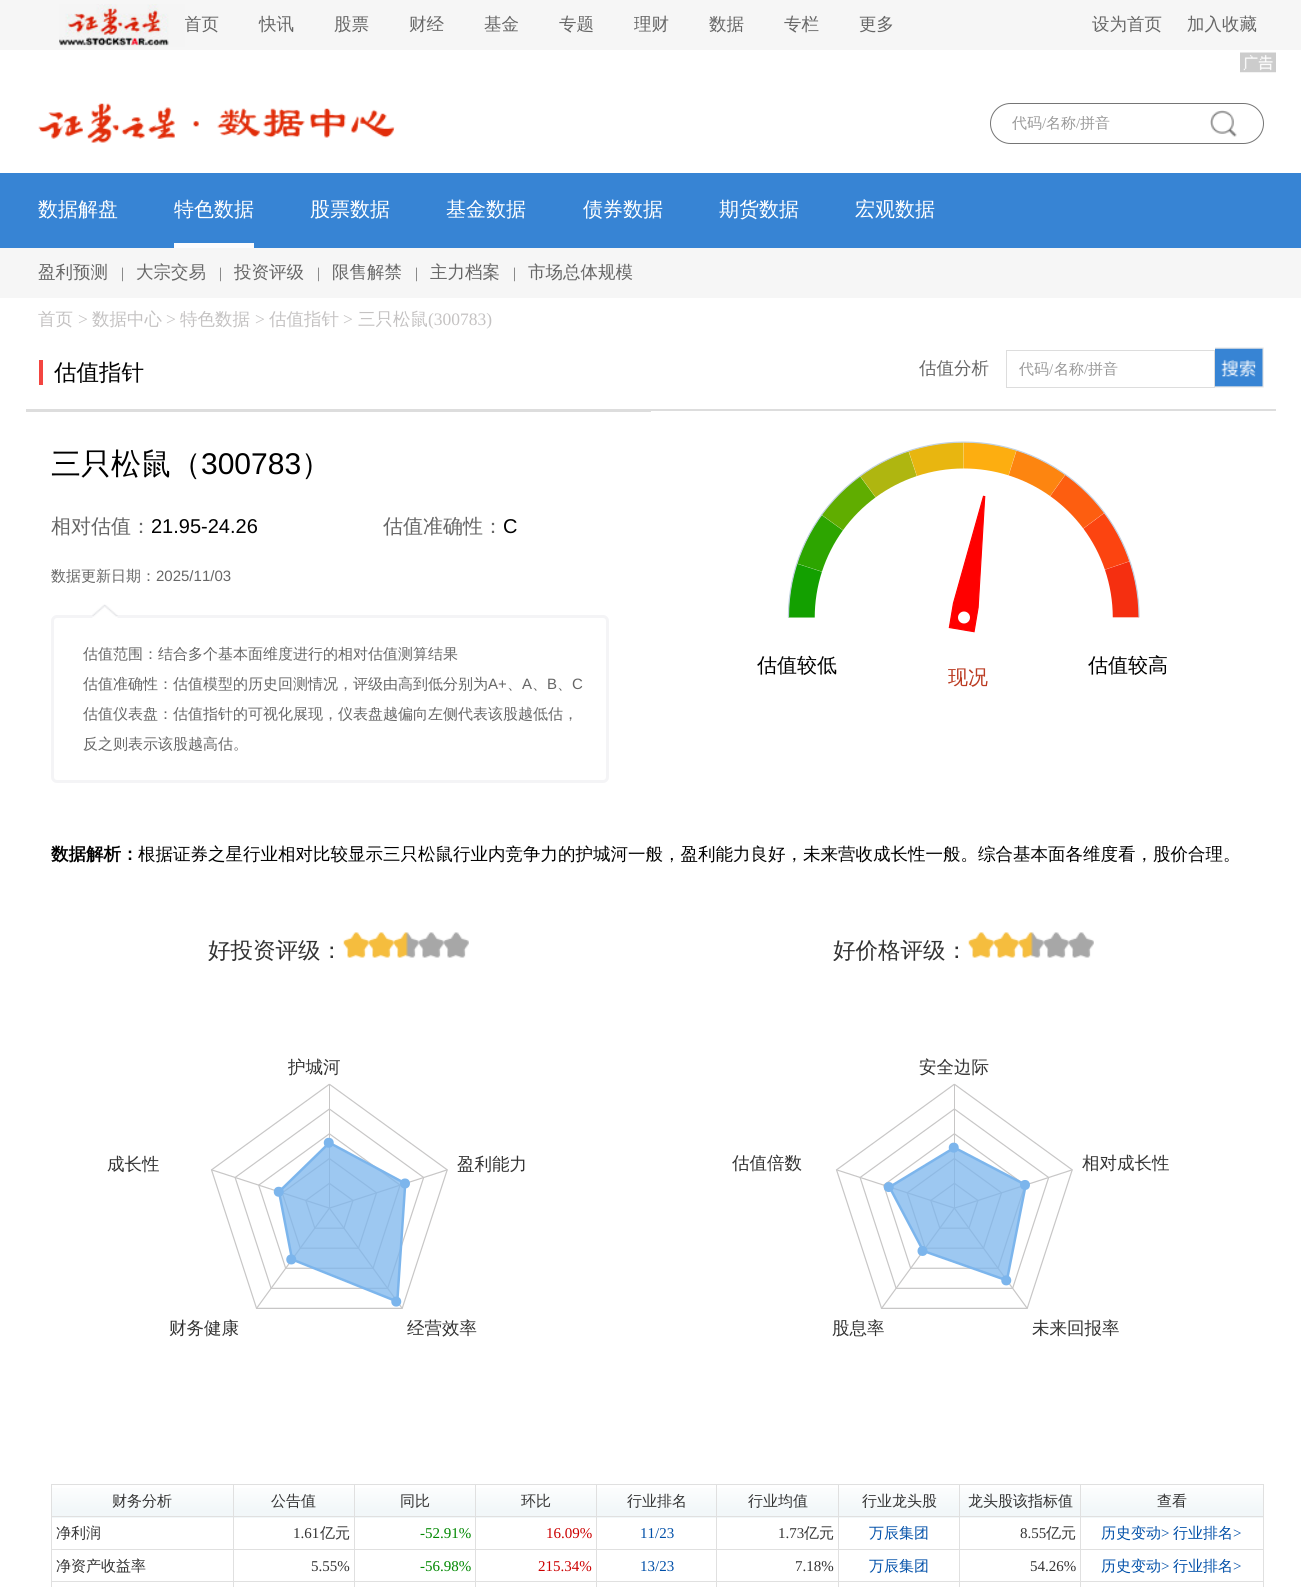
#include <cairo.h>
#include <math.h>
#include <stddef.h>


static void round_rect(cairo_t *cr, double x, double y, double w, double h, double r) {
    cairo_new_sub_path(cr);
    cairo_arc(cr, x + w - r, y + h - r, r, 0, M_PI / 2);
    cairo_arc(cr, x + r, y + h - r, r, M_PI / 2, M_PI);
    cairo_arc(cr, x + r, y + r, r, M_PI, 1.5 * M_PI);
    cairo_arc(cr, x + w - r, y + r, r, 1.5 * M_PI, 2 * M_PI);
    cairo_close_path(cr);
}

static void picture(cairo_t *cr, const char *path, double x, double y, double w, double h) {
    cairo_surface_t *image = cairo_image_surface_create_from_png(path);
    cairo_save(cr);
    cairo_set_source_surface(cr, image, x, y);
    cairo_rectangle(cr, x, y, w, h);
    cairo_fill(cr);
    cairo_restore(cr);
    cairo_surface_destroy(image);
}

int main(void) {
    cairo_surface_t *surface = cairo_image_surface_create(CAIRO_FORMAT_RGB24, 1301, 1587);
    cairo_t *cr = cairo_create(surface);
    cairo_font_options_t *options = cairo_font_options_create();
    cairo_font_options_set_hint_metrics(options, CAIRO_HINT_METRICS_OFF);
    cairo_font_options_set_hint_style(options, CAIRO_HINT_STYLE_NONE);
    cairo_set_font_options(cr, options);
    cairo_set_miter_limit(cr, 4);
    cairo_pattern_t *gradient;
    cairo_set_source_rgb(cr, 1, 1, 1);
    cairo_paint(cr);
    cairo_set_source_rgb(cr, 0.961, 0.961, 0.961);
    cairo_rectangle(cr, 0, 0, 1301, 50);
    cairo_fill(cr);
    cairo_select_font_face(cr, "WenQuanYi Zen Hei Medium", CAIRO_FONT_SLANT_NORMAL, CAIRO_FONT_WEIGHT_NORMAL);
    cairo_set_font_size(cr, 17.5);
    cairo_set_source_rgb(cr, 0.4, 0.4, 0.4);
    cairo_move_to(cr, 184, 30);
    cairo_show_text(cr, "首页");
    picture(cr, "img1.png", 59, 4, 126, 43);
    cairo_move_to(cr, 259, 30);
    cairo_show_text(cr, "快讯");
    cairo_move_to(cr, 334, 30);
    cairo_show_text(cr, "股票");
    cairo_move_to(cr, 409, 30);
    cairo_show_text(cr, "财经");
    cairo_move_to(cr, 484, 30);
    cairo_show_text(cr, "基金");
    cairo_move_to(cr, 559, 30);
    cairo_show_text(cr, "专题");
    cairo_move_to(cr, 634, 30);
    cairo_show_text(cr, "理财");
    cairo_move_to(cr, 709, 30);
    cairo_show_text(cr, "数据");
    cairo_move_to(cr, 784, 30);
    cairo_show_text(cr, "专栏");
    cairo_move_to(cr, 859, 30);
    cairo_show_text(cr, "更多");
    cairo_move_to(cr, 1092, 30);
    cairo_show_text(cr, "设为首页");
    cairo_move_to(cr, 1187, 30);
    cairo_show_text(cr, "加入收藏");
    picture(cr, "img2.png", 1240, 52, 36, 21);
    picture(cr, "img3.png", 38, 103, 161, 40);
    picture(cr, "img4.png", 217, 108, 178, 30);
    round_rect(cr, 990.5, 103.5, 273, 40, 20);
    cairo_set_source_rgb(cr, 0.459, 0.459, 0.459);
    cairo_set_line_width(cr, 1);
    cairo_stroke(cr);
    cairo_set_font_size(cr, 15);
    cairo_set_source_rgb(cr, 0.6, 0.6, 0.6);
    cairo_move_to(cr, 1012, 128);
    cairo_show_text(cr, "代码");
    cairo_select_font_face(cr, "Liberation Serif", CAIRO_FONT_SLANT_NORMAL, CAIRO_FONT_WEIGHT_NORMAL);
    cairo_move_to(cr, 1042, 128);
    cairo_show_text(cr, "/");
    cairo_select_font_face(cr, "WenQuanYi Zen Hei Medium", CAIRO_FONT_SLANT_NORMAL, CAIRO_FONT_WEIGHT_NORMAL);
    cairo_move_to(cr, 1046, 128);
    cairo_show_text(cr, "名称");
    cairo_select_font_face(cr, "Liberation Serif", CAIRO_FONT_SLANT_NORMAL, CAIRO_FONT_WEIGHT_NORMAL);
    cairo_move_to(cr, 1076, 128);
    cairo_show_text(cr, "/");
    cairo_select_font_face(cr, "WenQuanYi Zen Hei Medium", CAIRO_FONT_SLANT_NORMAL, CAIRO_FONT_WEIGHT_NORMAL);
    cairo_move_to(cr, 1080, 128);
    cairo_show_text(cr, "拼音");
    picture(cr, "img5.png", 1210, 110, 27, 27);
    cairo_set_source_rgb(cr, 0.216, 0.518, 0.831);
    cairo_rectangle(cr, 0, 173, 1301, 75);
    cairo_fill(cr);
    cairo_set_font_size(cr, 20);
    cairo_set_source_rgb(cr, 1, 1, 1);
    cairo_move_to(cr, 38, 216);
    cairo_show_text(cr, "数据解盘");
    cairo_set_source_rgb(cr, 0.988, 0.988, 0.996);
    cairo_rectangle(cr, 174, 243, 80, 5);
    cairo_fill(cr);
    cairo_set_source_rgb(cr, 1, 1, 1);
    cairo_move_to(cr, 174, 216);
    cairo_show_text(cr, "特色数据");
    cairo_move_to(cr, 310, 216);
    cairo_show_text(cr, "股票数据");
    cairo_move_to(cr, 446, 216);
    cairo_show_text(cr, "基金数据");
    cairo_move_to(cr, 583, 216);
    cairo_show_text(cr, "债券数据");
    cairo_move_to(cr, 719, 216);
    cairo_show_text(cr, "期货数据");
    cairo_move_to(cr, 855, 216);
    cairo_show_text(cr, "宏观数据");
    cairo_set_source_rgb(cr, 0.961, 0.961, 0.961);
    cairo_rectangle(cr, 0, 248, 1301, 50);
    cairo_fill(cr);
    cairo_set_font_size(cr, 17.5);
    cairo_set_source_rgb(cr, 0.4, 0.4, 0.4);
    cairo_move_to(cr, 38, 278);
    cairo_show_text(cr, "盈利预测");
    cairo_select_font_face(cr, "Liberation Serif", CAIRO_FONT_SLANT_NORMAL, CAIRO_FONT_WEIGHT_NORMAL);
    cairo_set_font_size(cr, 15);
    cairo_move_to(cr, 121, 278);
    cairo_show_text(cr, "|");
    cairo_select_font_face(cr, "WenQuanYi Zen Hei Medium", CAIRO_FONT_SLANT_NORMAL, CAIRO_FONT_WEIGHT_NORMAL);
    cairo_set_font_size(cr, 17.5);
    cairo_move_to(cr, 136, 278);
    cairo_show_text(cr, "大宗交易");
    cairo_select_font_face(cr, "Liberation Serif", CAIRO_FONT_SLANT_NORMAL, CAIRO_FONT_WEIGHT_NORMAL);
    cairo_set_font_size(cr, 15);
    cairo_move_to(cr, 219, 278);
    cairo_show_text(cr, "|");
    cairo_select_font_face(cr, "WenQuanYi Zen Hei Medium", CAIRO_FONT_SLANT_NORMAL, CAIRO_FONT_WEIGHT_NORMAL);
    cairo_set_font_size(cr, 17.5);
    cairo_move_to(cr, 234, 278);
    cairo_show_text(cr, "投资评级");
    cairo_select_font_face(cr, "Liberation Serif", CAIRO_FONT_SLANT_NORMAL, CAIRO_FONT_WEIGHT_NORMAL);
    cairo_set_font_size(cr, 15);
    cairo_move_to(cr, 317, 278);
    cairo_show_text(cr, "|");
    cairo_select_font_face(cr, "WenQuanYi Zen Hei Medium", CAIRO_FONT_SLANT_NORMAL, CAIRO_FONT_WEIGHT_NORMAL);
    cairo_set_font_size(cr, 17.5);
    cairo_move_to(cr, 332, 278);
    cairo_show_text(cr, "限售解禁");
    cairo_select_font_face(cr, "Liberation Serif", CAIRO_FONT_SLANT_NORMAL, CAIRO_FONT_WEIGHT_NORMAL);
    cairo_set_font_size(cr, 15);
    cairo_move_to(cr, 415, 278);
    cairo_show_text(cr, "|");
    cairo_select_font_face(cr, "WenQuanYi Zen Hei Medium", CAIRO_FONT_SLANT_NORMAL, CAIRO_FONT_WEIGHT_NORMAL);
    cairo_set_font_size(cr, 17.5);
    cairo_move_to(cr, 430, 278);
    cairo_show_text(cr, "主力档案");
    cairo_select_font_face(cr, "Liberation Serif", CAIRO_FONT_SLANT_NORMAL, CAIRO_FONT_WEIGHT_NORMAL);
    cairo_set_font_size(cr, 15);
    cairo_move_to(cr, 513, 278);
    cairo_show_text(cr, "|");
    cairo_select_font_face(cr, "WenQuanYi Zen Hei Medium", CAIRO_FONT_SLANT_NORMAL, CAIRO_FONT_WEIGHT_NORMAL);
    cairo_set_font_size(cr, 17.5);
    cairo_move_to(cr, 528, 278);
    cairo_show_text(cr, "市场总体规模");
    cairo_set_source_rgb(cr, 0.769, 0.761, 0.761);
    cairo_move_to(cr, 38, 325);
    cairo_show_text(cr, "首页");
    cairo_select_font_face(cr, "Liberation Serif", CAIRO_FONT_SLANT_NORMAL, CAIRO_FONT_WEIGHT_NORMAL);
    cairo_move_to(cr, 78, 325);
    cairo_show_text(cr, ">");
    cairo_select_font_face(cr, "WenQuanYi Zen Hei Medium", CAIRO_FONT_SLANT_NORMAL, CAIRO_FONT_WEIGHT_NORMAL);
    cairo_move_to(cr, 92, 325);
    cairo_show_text(cr, "数据中心");
    cairo_select_font_face(cr, "Liberation Serif", CAIRO_FONT_SLANT_NORMAL, CAIRO_FONT_WEIGHT_NORMAL);
    cairo_move_to(cr, 166, 325);
    cairo_show_text(cr, ">");
    cairo_select_font_face(cr, "WenQuanYi Zen Hei Medium", CAIRO_FONT_SLANT_NORMAL, CAIRO_FONT_WEIGHT_NORMAL);
    cairo_move_to(cr, 180, 325);
    cairo_show_text(cr, "特色数据");
    cairo_select_font_face(cr, "Liberation Serif", CAIRO_FONT_SLANT_NORMAL, CAIRO_FONT_WEIGHT_NORMAL);
    cairo_move_to(cr, 255, 325);
    cairo_show_text(cr, ">");
    cairo_select_font_face(cr, "WenQuanYi Zen Hei Medium", CAIRO_FONT_SLANT_NORMAL, CAIRO_FONT_WEIGHT_NORMAL);
    cairo_move_to(cr, 269, 325);
    cairo_show_text(cr, "估值指针");
    cairo_select_font_face(cr, "Liberation Serif", CAIRO_FONT_SLANT_NORMAL, CAIRO_FONT_WEIGHT_NORMAL);
    cairo_move_to(cr, 343, 325);
    cairo_show_text(cr, ">");
    cairo_select_font_face(cr, "WenQuanYi Zen Hei Medium", CAIRO_FONT_SLANT_NORMAL, CAIRO_FONT_WEIGHT_NORMAL);
    cairo_move_to(cr, 358, 325);
    cairo_show_text(cr, "三只松鼠");
    cairo_select_font_face(cr, "Liberation Serif", CAIRO_FONT_SLANT_NORMAL, CAIRO_FONT_WEIGHT_NORMAL);
    cairo_move_to(cr, 428, 325);
    cairo_show_text(cr, "(300783)");
    cairo_set_source_rgb(cr, 0.867, 0.867, 0.867);
    cairo_rectangle(cr, 26, 409, 1250, 3);
    cairo_fill(cr);
    cairo_select_font_face(cr, "WenQuanYi Zen Hei Medium", CAIRO_FONT_SLANT_NORMAL, CAIRO_FONT_WEIGHT_NORMAL);
    cairo_set_font_size(cr, 22.5);
    cairo_set_source_rgb(cr, 0, 0, 0);
    cairo_move_to(cr, 54, 380);
    cairo_show_text(cr, "估值指针");
    cairo_set_source_rgb(cr, 0.953, 0.271, 0.251);
    cairo_rectangle(cr, 39, 360, 4, 25);
    cairo_fill(cr);
    cairo_set_font_size(cr, 17.5);
    cairo_set_source_rgb(cr, 0.4, 0.4, 0.4);
    cairo_move_to(cr, 919, 374);
    cairo_show_text(cr, "估值分析");
    cairo_rectangle(cr, 1006.5, 350.5, 208, 37);
    cairo_set_source_rgb(cr, 0.867, 0.867, 0.867);
    cairo_stroke(cr);
    cairo_set_font_size(cr, 15);
    cairo_set_source_rgb(cr, 0.6, 0.6, 0.6);
    cairo_move_to(cr, 1019, 374);
    cairo_show_text(cr, "代码");
    cairo_select_font_face(cr, "Liberation Serif", CAIRO_FONT_SLANT_NORMAL, CAIRO_FONT_WEIGHT_NORMAL);
    cairo_move_to(cr, 1049, 374);
    cairo_show_text(cr, "/");
    cairo_select_font_face(cr, "WenQuanYi Zen Hei Medium", CAIRO_FONT_SLANT_NORMAL, CAIRO_FONT_WEIGHT_NORMAL);
    cairo_move_to(cr, 1054, 374);
    cairo_show_text(cr, "名称");
    cairo_select_font_face(cr, "Liberation Serif", CAIRO_FONT_SLANT_NORMAL, CAIRO_FONT_WEIGHT_NORMAL);
    cairo_move_to(cr, 1084, 374);
    cairo_show_text(cr, "/");
    cairo_select_font_face(cr, "WenQuanYi Zen Hei Medium", CAIRO_FONT_SLANT_NORMAL, CAIRO_FONT_WEIGHT_NORMAL);
    cairo_move_to(cr, 1088, 374);
    cairo_show_text(cr, "拼音");
    picture(cr, "img6.png", 1215, 347, 49, 41);
    cairo_set_font_size(cr, 30);
    cairo_set_source_rgb(cr, 0, 0, 0);
    cairo_move_to(cr, 51, 474);
    cairo_show_text(cr, "三只松鼠（");
    cairo_select_font_face(cr, "Liberation Sans", CAIRO_FONT_SLANT_NORMAL, CAIRO_FONT_WEIGHT_NORMAL);
    cairo_move_to(cr, 201, 474);
    cairo_show_text(cr, "300783");
    cairo_select_font_face(cr, "WenQuanYi Zen Hei Medium", CAIRO_FONT_SLANT_NORMAL, CAIRO_FONT_WEIGHT_NORMAL);
    cairo_move_to(cr, 301, 474);
    cairo_show_text(cr, "）");
    cairo_set_font_size(cr, 20);
    cairo_set_source_rgb(cr, 0.4, 0.4, 0.4);
    cairo_move_to(cr, 51, 533);
    cairo_show_text(cr, "相对估值：");
    cairo_select_font_face(cr, "Liberation Sans", CAIRO_FONT_SLANT_NORMAL, CAIRO_FONT_WEIGHT_NORMAL);
    cairo_set_source_rgb(cr, 0, 0, 0);
    cairo_move_to(cr, 151, 533);
    cairo_show_text(cr, "21.95-24.26");
    cairo_select_font_face(cr, "WenQuanYi Zen Hei Medium", CAIRO_FONT_SLANT_NORMAL, CAIRO_FONT_WEIGHT_NORMAL);
    cairo_set_source_rgb(cr, 0.4, 0.4, 0.4);
    cairo_move_to(cr, 383, 533);
    cairo_show_text(cr, "估值准确性：");
    cairo_select_font_face(cr, "Liberation Sans", CAIRO_FONT_SLANT_NORMAL, CAIRO_FONT_WEIGHT_NORMAL);
    cairo_set_source_rgb(cr, 0, 0, 0);
    cairo_move_to(cr, 503, 533);
    cairo_show_text(cr, "C");
    cairo_select_font_face(cr, "WenQuanYi Zen Hei Medium", CAIRO_FONT_SLANT_NORMAL, CAIRO_FONT_WEIGHT_NORMAL);
    cairo_set_font_size(cr, 15);
    cairo_set_source_rgb(cr, 0.4, 0.4, 0.4);
    cairo_move_to(cr, 51, 581);
    cairo_show_text(cr, "数据更新日期：");
    cairo_select_font_face(cr, "Liberation Sans", CAIRO_FONT_SLANT_NORMAL, CAIRO_FONT_WEIGHT_NORMAL);
    cairo_move_to(cr, 156, 581);
    cairo_show_text(cr, "2025/11/03");
    round_rect(cr, 52.5, 616.5, 555, 165, 4.5);
    cairo_set_source_rgb(cr, 0.957, 0.957, 0.961);
    cairo_set_line_width(cr, 3);
    cairo_stroke(cr);
    picture(cr, "img7.png", 92, 604, 26, 14);
    cairo_select_font_face(cr, "WenQuanYi Zen Hei Medium", CAIRO_FONT_SLANT_NORMAL, CAIRO_FONT_WEIGHT_NORMAL);
    cairo_set_source_rgb(cr, 0.4, 0.4, 0.4);
    cairo_move_to(cr, 83, 659);
    cairo_show_text(cr, "估值范围：结合多个基本面维度进行的相对估值测算结果");
    cairo_move_to(cr, 83, 689);
    cairo_show_text(cr, "估值准确性：估值模型的历史回测情况，评级由高到低分别为");
    cairo_select_font_face(cr, "Liberation Sans", CAIRO_FONT_SLANT_NORMAL, CAIRO_FONT_WEIGHT_NORMAL);
    cairo_move_to(cr, 488, 689);
    cairo_show_text(cr, "A+");
    cairo_select_font_face(cr, "WenQuanYi Zen Hei Medium", CAIRO_FONT_SLANT_NORMAL, CAIRO_FONT_WEIGHT_NORMAL);
    cairo_move_to(cr, 507, 689);
    cairo_show_text(cr, "、");
    cairo_select_font_face(cr, "Liberation Sans", CAIRO_FONT_SLANT_NORMAL, CAIRO_FONT_WEIGHT_NORMAL);
    cairo_move_to(cr, 522, 689);
    cairo_show_text(cr, "A");
    cairo_select_font_face(cr, "WenQuanYi Zen Hei Medium", CAIRO_FONT_SLANT_NORMAL, CAIRO_FONT_WEIGHT_NORMAL);
    cairo_move_to(cr, 532, 689);
    cairo_show_text(cr, "、");
    cairo_select_font_face(cr, "Liberation Sans", CAIRO_FONT_SLANT_NORMAL, CAIRO_FONT_WEIGHT_NORMAL);
    cairo_move_to(cr, 547, 689);
    cairo_show_text(cr, "B");
    cairo_select_font_face(cr, "WenQuanYi Zen Hei Medium", CAIRO_FONT_SLANT_NORMAL, CAIRO_FONT_WEIGHT_NORMAL);
    cairo_move_to(cr, 557, 689);
    cairo_show_text(cr, "、");
    cairo_select_font_face(cr, "Liberation Sans", CAIRO_FONT_SLANT_NORMAL, CAIRO_FONT_WEIGHT_NORMAL);
    cairo_move_to(cr, 572, 689);
    cairo_show_text(cr, "C");
    cairo_select_font_face(cr, "WenQuanYi Zen Hei Medium", CAIRO_FONT_SLANT_NORMAL, CAIRO_FONT_WEIGHT_NORMAL);
    cairo_move_to(cr, 83, 719);
    cairo_show_text(cr, "估值仪表盘：估值指针的可视化展现，仪表盘越偏向左侧代表该股越低估，");
    cairo_move_to(cr, 83, 749);
    cairo_show_text(cr, "反之则表示该股越高估。");
    picture(cr, "img8.png", 651, 411, 625, 222);
    cairo_set_font_size(cr, 20);
    cairo_set_source_rgb(cr, 0, 0, 0);
    cairo_move_to(cr, 757, 672);
    cairo_show_text(cr, "估值较低");
    cairo_set_source_rgb(cr, 0.733, 0.231, 0.133);
    cairo_move_to(cr, 948, 684);
    cairo_show_text(cr, "现况");
    cairo_set_source_rgb(cr, 0, 0, 0);
    cairo_move_to(cr, 1088, 672);
    cairo_show_text(cr, "估值较高");
    cairo_select_font_face(cr, "WenQuanYi Zen Hei", CAIRO_FONT_SLANT_NORMAL, CAIRO_FONT_WEIGHT_BOLD);
    cairo_set_font_size(cr, 17.5);
    cairo_move_to(cr, 51, 860);
    cairo_show_text(cr, "数据解析：");
    cairo_select_font_face(cr, "WenQuanYi Zen Hei Medium", CAIRO_FONT_SLANT_NORMAL, CAIRO_FONT_WEIGHT_NORMAL);
    cairo_move_to(cr, 138, 860);
    cairo_show_text(cr, "根据证券之星行业相对比较显示三只松鼠行业内竞争力的护城河一般，盈利能力良好，未来营收成长性一般。综合基本面各维度看，股价合理。");
    cairo_set_font_size(cr, 22.5);
    cairo_set_source_rgb(cr, 0.2, 0.2, 0.2);
    cairo_move_to(cr, 208, 958);
    cairo_show_text(cr, "好投资评级：");
    picture(cr, "img9.png", 343, 932, 26, 26);
    picture(cr, "img10.png", 368, 932, 26, 26);
    picture(cr, "img11.png", 393, 932, 26, 26);
    picture(cr, "img12.png", 418, 932, 26, 26);
    picture(cr, "img12.png", 443, 932, 26, 26);
    cairo_move_to(cr, 833, 958);
    cairo_show_text(cr, "好价格评级：");
    picture(cr, "img9.png", 968, 932, 26, 26);
    picture(cr, "img13.png", 993, 932, 26, 26);
    picture(cr, "img14.png", 1018, 932, 26, 26);
    picture(cr, "img12.png", 1043, 932, 26, 26);
    picture(cr, "img15.png", 1068, 932, 26, 26);
    picture(cr, "img16.png", 209, 961, 239, 348);
    cairo_set_font_size(cr, 17.5);
    cairo_move_to(cr, 288, 1073);
    cairo_show_text(cr, "护城河");
    cairo_move_to(cr, 107, 1170);
    cairo_show_text(cr, "成长性");
    cairo_move_to(cr, 457, 1170);
    cairo_show_text(cr, "盈利能力");
    cairo_move_to(cr, 169, 1334);
    cairo_show_text(cr, "财务健康");
    cairo_move_to(cr, 407, 1334);
    cairo_show_text(cr, "经营效率");
    picture(cr, "img17.png", 834, 961, 239, 348);
    cairo_move_to(cr, 919, 1073);
    cairo_show_text(cr, "安全边际");
    cairo_move_to(cr, 732, 1169);
    cairo_show_text(cr, "估值倍数");
    cairo_move_to(cr, 1082, 1169);
    cairo_show_text(cr, "相对成长性");
    cairo_move_to(cr, 832, 1334);
    cairo_show_text(cr, "股息率");
    cairo_move_to(cr, 1032, 1334);
    cairo_show_text(cr, "未来回报率");
    cairo_set_source_rgb(cr, 0.878, 0.878, 0.878);
    cairo_rectangle(cr, 51, 1484, 1213, 1);
    cairo_fill(cr);
    gradient = cairo_pattern_create_linear(143, 1482, 143, 1518);
    cairo_pattern_add_color_stop_rgba(gradient, 0, 1, 1, 1, 1);
    cairo_pattern_add_color_stop_rgba(gradient, 0.8, 0.949, 0.969, 0.976, 1);
    cairo_set_source(cr, gradient);
    cairo_pattern_destroy(gradient);
    cairo_rectangle(cr, 52, 1488, 181, 30);
    cairo_fill(cr);
    gradient = cairo_pattern_create_linear(294, 1482, 294, 1518);
    cairo_pattern_add_color_stop_rgba(gradient, 0, 1, 1, 1, 1);
    cairo_pattern_add_color_stop_rgba(gradient, 0.8, 0.949, 0.969, 0.976, 1);
    cairo_set_source(cr, gradient);
    cairo_pattern_destroy(gradient);
    cairo_rectangle(cr, 234, 1488, 120, 30);
    cairo_fill(cr);
    gradient = cairo_pattern_create_linear(415, 1482, 415, 1518);
    cairo_pattern_add_color_stop_rgba(gradient, 0, 1, 1, 1, 1);
    cairo_pattern_add_color_stop_rgba(gradient, 0.8, 0.949, 0.969, 0.976, 1);
    cairo_set_source(cr, gradient);
    cairo_pattern_destroy(gradient);
    cairo_rectangle(cr, 355, 1488, 120, 30);
    cairo_fill(cr);
    gradient = cairo_pattern_create_linear(536, 1482, 536, 1518);
    cairo_pattern_add_color_stop_rgba(gradient, 0, 1, 1, 1, 1);
    cairo_pattern_add_color_stop_rgba(gradient, 0.8, 0.949, 0.969, 0.976, 1);
    cairo_set_source(cr, gradient);
    cairo_pattern_destroy(gradient);
    cairo_rectangle(cr, 476, 1488, 120, 30);
    cairo_fill(cr);
    gradient = cairo_pattern_create_linear(658, 1482, 658, 1518);
    cairo_pattern_add_color_stop_rgba(gradient, 0, 1, 1, 1, 1);
    cairo_pattern_add_color_stop_rgba(gradient, 0.8, 0.949, 0.969, 0.976, 1);
    cairo_set_source(cr, gradient);
    cairo_pattern_destroy(gradient);
    cairo_rectangle(cr, 597, 1488, 121, 30);
    cairo_fill(cr);
    gradient = cairo_pattern_create_linear(779, 1482, 779, 1518);
    cairo_pattern_add_color_stop_rgba(gradient, 0, 1, 1, 1, 1);
    cairo_pattern_add_color_stop_rgba(gradient, 0.8, 0.949, 0.969, 0.976, 1);
    cairo_set_source(cr, gradient);
    cairo_pattern_destroy(gradient);
    cairo_rectangle(cr, 718, 1488, 120, 30);
    cairo_fill(cr);
    gradient = cairo_pattern_create_linear(900, 1482, 900, 1518);
    cairo_pattern_add_color_stop_rgba(gradient, 0, 1, 1, 1, 1);
    cairo_pattern_add_color_stop_rgba(gradient, 0.8, 0.949, 0.969, 0.976, 1);
    cairo_set_source(cr, gradient);
    cairo_pattern_destroy(gradient);
    cairo_rectangle(cr, 839, 1488, 120, 30);
    cairo_fill(cr);
    gradient = cairo_pattern_create_linear(1021, 1482, 1021, 1518);
    cairo_pattern_add_color_stop_rgba(gradient, 0, 1, 1, 1, 1);
    cairo_pattern_add_color_stop_rgba(gradient, 0.8, 0.949, 0.969, 0.976, 1);
    cairo_set_source(cr, gradient);
    cairo_pattern_destroy(gradient);
    cairo_rectangle(cr, 960, 1488, 120, 30);
    cairo_fill(cr);
    gradient = cairo_pattern_create_linear(1173, 1482, 1173, 1518);
    cairo_pattern_add_color_stop_rgba(gradient, 0, 1, 1, 1, 1);
    cairo_pattern_add_color_stop_rgba(gradient, 0.8, 0.949, 0.969, 0.976, 1);
    cairo_set_source(cr, gradient);
    cairo_pattern_destroy(gradient);
    cairo_rectangle(cr, 1081, 1488, 182, 30);
    cairo_fill(cr);
    cairo_set_source_rgb(cr, 0.878, 0.878, 0.878);
    cairo_rectangle(cr, 51, 1516, 1213, 1);
    cairo_fill(cr);
    cairo_rectangle(cr, 51, 1549, 1213, 1);
    cairo_fill(cr);
    cairo_rectangle(cr, 51, 1581, 1213, 1);
    cairo_fill(cr);
    cairo_rectangle(cr, 1263, 1581, 1, 6);
    cairo_fill(cr);
    cairo_rectangle(cr, 1263, 1549, 1, 34);
    cairo_fill(cr);
    cairo_rectangle(cr, 1263, 1516, 1, 34);
    cairo_fill(cr);
    cairo_rectangle(cr, 1263, 1484, 1, 34);
    cairo_fill(cr);
    cairo_rectangle(cr, 51, 1581, 1, 6);
    cairo_fill(cr);
    cairo_rectangle(cr, 51, 1549, 1, 34);
    cairo_fill(cr);
    cairo_rectangle(cr, 51, 1516, 1, 34);
    cairo_fill(cr);
    cairo_rectangle(cr, 51, 1484, 1, 34);
    cairo_fill(cr);
    cairo_set_font_size(cr, 15);
    cairo_set_source_rgb(cr, 0.2, 0.2, 0.2);
    cairo_move_to(cr, 112, 1506);
    cairo_show_text(cr, "财务分析");
    cairo_move_to(cr, 271, 1506);
    cairo_show_text(cr, "公告值");
    cairo_move_to(cr, 400, 1506);
    cairo_show_text(cr, "同比");
    cairo_move_to(cr, 521, 1506);
    cairo_show_text(cr, "环比");
    cairo_move_to(cr, 627, 1506);
    cairo_show_text(cr, "行业排名");
    cairo_move_to(cr, 748, 1506);
    cairo_show_text(cr, "行业均值");
    cairo_move_to(cr, 862, 1506);
    cairo_show_text(cr, "行业龙头股");
    cairo_move_to(cr, 968, 1506);
    cairo_show_text(cr, "龙头股该指标值");
    cairo_move_to(cr, 1157, 1506);
    cairo_show_text(cr, "查看");
    cairo_set_source_rgb(cr, 0.878, 0.878, 0.878);
    cairo_rectangle(cr, 233, 1484, 1, 103);
    cairo_fill(cr);
    cairo_rectangle(cr, 354, 1484, 1, 103);
    cairo_fill(cr);
    cairo_rectangle(cr, 475, 1484, 1, 103);
    cairo_fill(cr);
    cairo_rectangle(cr, 596, 1484, 1, 103);
    cairo_fill(cr);
    cairo_rectangle(cr, 716, 1484, 1, 103);
    cairo_fill(cr);
    cairo_rectangle(cr, 838, 1484, 1, 103);
    cairo_fill(cr);
    cairo_rectangle(cr, 959, 1484, 1, 103);
    cairo_fill(cr);
    cairo_rectangle(cr, 1080, 1484, 1, 103);
    cairo_fill(cr);
    cairo_set_source_rgb(cr, 0.2, 0.2, 0.2);
    cairo_move_to(cr, 56, 1538);
    cairo_show_text(cr, "净利润");
    cairo_select_font_face(cr, "Liberation Serif", CAIRO_FONT_SLANT_NORMAL, CAIRO_FONT_WEIGHT_NORMAL);
    cairo_move_to(cr, 293, 1538);
    cairo_show_text(cr, "1.61");
    cairo_select_font_face(cr, "WenQuanYi Zen Hei Medium", CAIRO_FONT_SLANT_NORMAL, CAIRO_FONT_WEIGHT_NORMAL);
    cairo_move_to(cr, 320, 1538);
    cairo_show_text(cr, "亿元");
    cairo_select_font_face(cr, "Liberation Serif", CAIRO_FONT_SLANT_NORMAL, CAIRO_FONT_WEIGHT_NORMAL);
    cairo_set_source_rgb(cr, 0, 0.533, 0);
    cairo_move_to(cr, 420, 1538);
    cairo_show_text(cr, "-52.91%");
    cairo_set_source_rgb(cr, 0.8, 0, 0);
    cairo_move_to(cr, 546, 1538);
    cairo_show_text(cr, "16.09%");
    cairo_set_source_rgb(cr, 0, 0.31, 0.659);
    cairo_move_to(cr, 640, 1538);
    cairo_show_text(cr, "11/23");
    cairo_set_source_rgb(cr, 0.2, 0.2, 0.2);
    cairo_move_to(cr, 778, 1538);
    cairo_show_text(cr, "1.73");
    cairo_select_font_face(cr, "WenQuanYi Zen Hei Medium", CAIRO_FONT_SLANT_NORMAL, CAIRO_FONT_WEIGHT_NORMAL);
    cairo_move_to(cr, 804, 1538);
    cairo_show_text(cr, "亿元");
    cairo_set_source_rgb(cr, 0, 0.31, 0.659);
    cairo_move_to(cr, 869, 1538);
    cairo_show_text(cr, "万辰集团");
    cairo_select_font_face(cr, "Liberation Serif", CAIRO_FONT_SLANT_NORMAL, CAIRO_FONT_WEIGHT_NORMAL);
    cairo_set_source_rgb(cr, 0.2, 0.2, 0.2);
    cairo_move_to(cr, 1020, 1538);
    cairo_show_text(cr, "8.55");
    cairo_select_font_face(cr, "WenQuanYi Zen Hei Medium", CAIRO_FONT_SLANT_NORMAL, CAIRO_FONT_WEIGHT_NORMAL);
    cairo_move_to(cr, 1046, 1538);
    cairo_show_text(cr, "亿元");
    cairo_set_source_rgb(cr, 0, 0.31, 0.659);
    cairo_move_to(cr, 1101, 1538);
    cairo_show_text(cr, "历史变动");
    cairo_select_font_face(cr, "Liberation Serif", CAIRO_FONT_SLANT_NORMAL, CAIRO_FONT_WEIGHT_NORMAL);
    cairo_move_to(cr, 1161, 1538);
    cairo_show_text(cr, ">");
    cairo_select_font_face(cr, "WenQuanYi Zen Hei Medium", CAIRO_FONT_SLANT_NORMAL, CAIRO_FONT_WEIGHT_NORMAL);
    cairo_move_to(cr, 1173, 1538);
    cairo_show_text(cr, "行业排名");
    cairo_select_font_face(cr, "Liberation Serif", CAIRO_FONT_SLANT_NORMAL, CAIRO_FONT_WEIGHT_NORMAL);
    cairo_move_to(cr, 1233, 1538);
    cairo_show_text(cr, ">");
    cairo_select_font_face(cr, "WenQuanYi Zen Hei Medium", CAIRO_FONT_SLANT_NORMAL, CAIRO_FONT_WEIGHT_NORMAL);
    cairo_set_source_rgb(cr, 0.2, 0.2, 0.2);
    cairo_move_to(cr, 56, 1571);
    cairo_show_text(cr, "净资产收益率");
    cairo_select_font_face(cr, "Liberation Serif", CAIRO_FONT_SLANT_NORMAL, CAIRO_FONT_WEIGHT_NORMAL);
    cairo_move_to(cr, 311, 1571);
    cairo_show_text(cr, "5.55%");
    cairo_set_source_rgb(cr, 0, 0.533, 0);
    cairo_move_to(cr, 420, 1571);
    cairo_show_text(cr, "-56.98%");
    cairo_set_source_rgb(cr, 0.8, 0, 0);
    cairo_move_to(cr, 538, 1571);
    cairo_show_text(cr, "215.34%");
    cairo_set_source_rgb(cr, 0, 0.31, 0.659);
    cairo_move_to(cr, 640, 1571);
    cairo_show_text(cr, "13/23");
    cairo_set_source_rgb(cr, 0.2, 0.2, 0.2);
    cairo_move_to(cr, 795, 1571);
    cairo_show_text(cr, "7.18%");
    cairo_select_font_face(cr, "WenQuanYi Zen Hei Medium", CAIRO_FONT_SLANT_NORMAL, CAIRO_FONT_WEIGHT_NORMAL);
    cairo_set_source_rgb(cr, 0, 0.31, 0.659);
    cairo_move_to(cr, 869, 1571);
    cairo_show_text(cr, "万辰集团");
    cairo_select_font_face(cr, "Liberation Serif", CAIRO_FONT_SLANT_NORMAL, CAIRO_FONT_WEIGHT_NORMAL);
    cairo_set_source_rgb(cr, 0.2, 0.2, 0.2);
    cairo_move_to(cr, 1030, 1571);
    cairo_show_text(cr, "54.26%");
    cairo_select_font_face(cr, "WenQuanYi Zen Hei Medium", CAIRO_FONT_SLANT_NORMAL, CAIRO_FONT_WEIGHT_NORMAL);
    cairo_set_source_rgb(cr, 0, 0.31, 0.659);
    cairo_move_to(cr, 1101, 1571);
    cairo_show_text(cr, "历史变动");
    cairo_select_font_face(cr, "Liberation Serif", CAIRO_FONT_SLANT_NORMAL, CAIRO_FONT_WEIGHT_NORMAL);
    cairo_move_to(cr, 1161, 1571);
    cairo_show_text(cr, ">");
    cairo_select_font_face(cr, "WenQuanYi Zen Hei Medium", CAIRO_FONT_SLANT_NORMAL, CAIRO_FONT_WEIGHT_NORMAL);
    cairo_move_to(cr, 1173, 1571);
    cairo_show_text(cr, "行业排名");
    cairo_select_font_face(cr, "Liberation Serif", CAIRO_FONT_SLANT_NORMAL, CAIRO_FONT_WEIGHT_NORMAL);
    cairo_move_to(cr, 1233, 1571);
    cairo_show_text(cr, ">");
    cairo_surface_write_to_png(surface, "page.png");
    cairo_font_options_destroy(options);
    cairo_destroy(cr);
    cairo_surface_destroy(surface);
    return 0;
}
